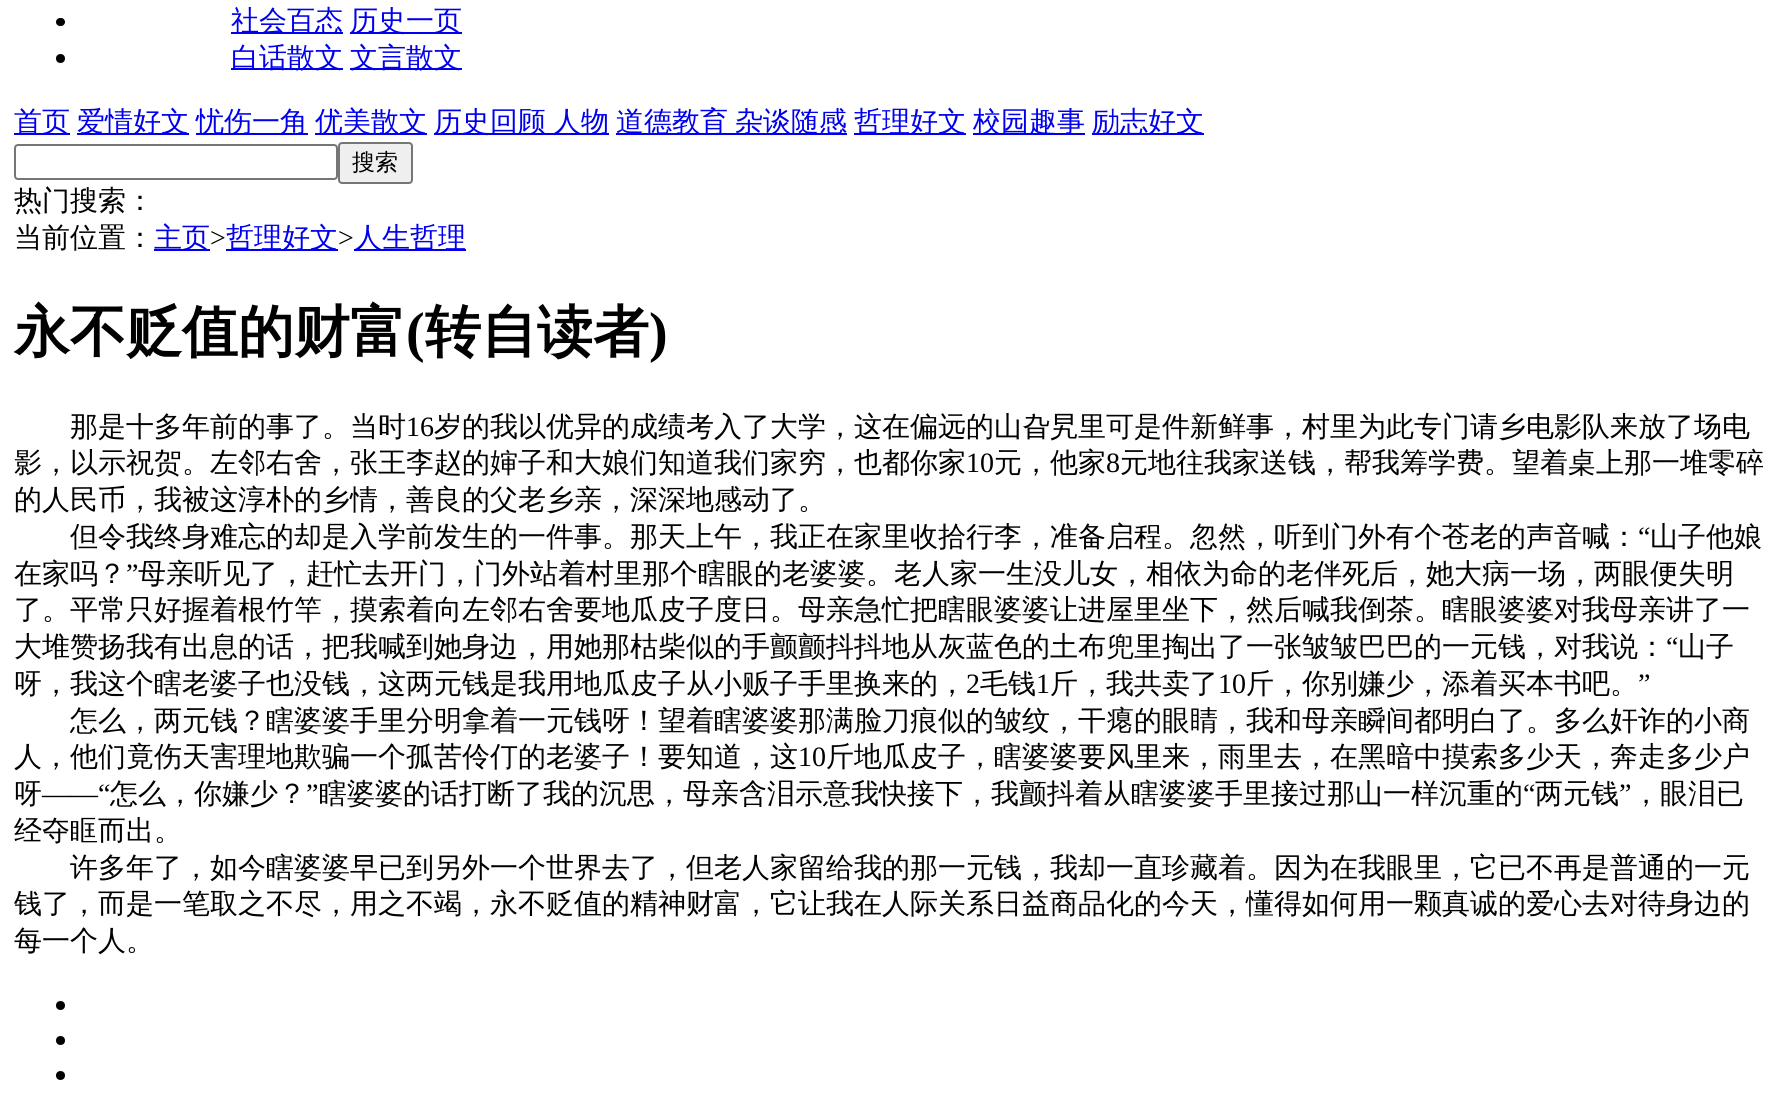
#include <cairo.h>
#include <math.h>
#include <stddef.h>


static void round_rect(cairo_t *cr, double x, double y, double w, double h, double r) {
    cairo_new_sub_path(cr);
    cairo_arc(cr, x + w - r, y + h - r, r, 0, M_PI / 2);
    cairo_arc(cr, x + r, y + h - r, r, M_PI / 2, M_PI);
    cairo_arc(cr, x + r, y + r, r, M_PI, 1.5 * M_PI);
    cairo_arc(cr, x + w - r, y + r, r, 1.5 * M_PI, 2 * M_PI);
    cairo_close_path(cr);
}

int main(void) {
    cairo_surface_t *surface = cairo_image_surface_create(CAIRO_FORMAT_RGB24, 1778, 1114);
    cairo_t *cr = cairo_create(surface);
    cairo_font_options_t *options = cairo_font_options_create();
    cairo_font_options_set_hint_metrics(options, CAIRO_HINT_METRICS_OFF);
    cairo_font_options_set_hint_style(options, CAIRO_HINT_STYLE_NONE);
    cairo_set_font_options(cr, options);
    cairo_set_miter_limit(cr, 4);
    cairo_set_source_rgb(cr, 1, 1, 1);
    cairo_paint(cr);
    cairo_set_source_rgb(cr, 0, 0, 0);
    round_rect(cr, 56, 18, 9, 8, 4);
    cairo_fill(cr);
    cairo_set_source_rgb(cr, 0, 0, 0.933);
    cairo_rectangle(cr, 231, 32, 112, 2);
    cairo_fill(cr);
    cairo_select_font_face(cr, "WenQuanYi Zen Hei Medium", CAIRO_FONT_SLANT_NORMAL, CAIRO_FONT_WEIGHT_NORMAL);
    cairo_set_font_size(cr, 28);
    cairo_move_to(cr, 231, 30);
    cairo_show_text(cr, "社会百态");
    cairo_rectangle(cr, 350, 32, 112, 2);
    cairo_fill(cr);
    cairo_move_to(cr, 350, 30);
    cairo_show_text(cr, "历史一页");
    cairo_set_source_rgb(cr, 0, 0, 0);
    cairo_new_path(cr);
    cairo_arc(cr, 60.5, 58.5, 4.5, 0, 2 * M_PI);
    cairo_fill(cr);
    cairo_set_source_rgb(cr, 0, 0, 0.933);
    cairo_rectangle(cr, 231, 68, 112, 2);
    cairo_fill(cr);
    cairo_move_to(cr, 231, 67);
    cairo_show_text(cr, "白话散文");
    cairo_rectangle(cr, 350, 68, 112, 2);
    cairo_fill(cr);
    cairo_move_to(cr, 350, 67);
    cairo_show_text(cr, "文言散文");
    cairo_rectangle(cr, 14, 133, 56, 2);
    cairo_fill(cr);
    cairo_move_to(cr, 14, 131);
    cairo_show_text(cr, "首页");
    cairo_rectangle(cr, 77, 133, 112, 2);
    cairo_fill(cr);
    cairo_move_to(cr, 77, 131);
    cairo_show_text(cr, "爱情好文");
    cairo_rectangle(cr, 196, 133, 112, 2);
    cairo_fill(cr);
    cairo_move_to(cr, 196, 131);
    cairo_show_text(cr, "忧伤一角");
    cairo_rectangle(cr, 315, 133, 112, 2);
    cairo_fill(cr);
    cairo_move_to(cr, 315, 131);
    cairo_show_text(cr, "优美散文");
    cairo_rectangle(cr, 434, 133, 175, 2);
    cairo_fill(cr);
    cairo_move_to(cr, 434, 131);
    cairo_show_text(cr, "历史回顾");
    cairo_move_to(cr, 553, 131);
    cairo_show_text(cr, "人物");
    cairo_rectangle(cr, 616, 133, 231, 2);
    cairo_fill(cr);
    cairo_move_to(cr, 616, 131);
    cairo_show_text(cr, "道德教育");
    cairo_move_to(cr, 735, 131);
    cairo_show_text(cr, "杂谈随感");
    cairo_rectangle(cr, 854, 133, 112, 2);
    cairo_fill(cr);
    cairo_move_to(cr, 854, 131);
    cairo_show_text(cr, "哲理好文");
    cairo_rectangle(cr, 973, 133, 112, 2);
    cairo_fill(cr);
    cairo_move_to(cr, 973, 131);
    cairo_show_text(cr, "校园趣事");
    cairo_rectangle(cr, 1092, 133, 112, 2);
    cairo_fill(cr);
    cairo_move_to(cr, 1092, 131);
    cairo_show_text(cr, "励志好文");
    round_rect(cr, 15, 145, 322, 34, 3);
    cairo_set_source_rgb(cr, 0.463, 0.463, 0.463);
    cairo_stroke(cr);
    cairo_set_source_rgb(cr, 0.937, 0.937, 0.937);
    round_rect(cr, 339, 143, 73, 40, 3);
    cairo_fill_preserve(cr);
    cairo_set_source_rgb(cr, 0.463, 0.463, 0.463);
    cairo_stroke(cr);
    cairo_set_font_size(cr, 23);
    cairo_set_source_rgb(cr, 0, 0, 0);
    cairo_move_to(cr, 352, 170);
    cairo_show_text(cr, "搜索");
    cairo_set_font_size(cr, 28);
    cairo_move_to(cr, 14, 210);
    cairo_show_text(cr, "热门搜索：");
    cairo_move_to(cr, 14, 247);
    cairo_show_text(cr, "当前位置：");
    cairo_set_source_rgb(cr, 0, 0, 0.933);
    cairo_rectangle(cr, 154, 249, 56, 2);
    cairo_fill(cr);
    cairo_move_to(cr, 154, 247);
    cairo_show_text(cr, "主页");
    cairo_select_font_face(cr, "Liberation Serif", CAIRO_FONT_SLANT_NORMAL, CAIRO_FONT_WEIGHT_NORMAL);
    cairo_set_source_rgb(cr, 0, 0, 0);
    cairo_move_to(cr, 210, 247);
    cairo_show_text(cr, ">");
    cairo_set_source_rgb(cr, 0, 0, 0.933);
    cairo_rectangle(cr, 226, 249, 112, 2);
    cairo_fill(cr);
    cairo_select_font_face(cr, "WenQuanYi Zen Hei Medium", CAIRO_FONT_SLANT_NORMAL, CAIRO_FONT_WEIGHT_NORMAL);
    cairo_move_to(cr, 226, 247);
    cairo_show_text(cr, "哲理好文");
    cairo_select_font_face(cr, "Liberation Serif", CAIRO_FONT_SLANT_NORMAL, CAIRO_FONT_WEIGHT_NORMAL);
    cairo_set_source_rgb(cr, 0, 0, 0);
    cairo_move_to(cr, 338, 247);
    cairo_show_text(cr, ">");
    cairo_set_source_rgb(cr, 0, 0, 0.933);
    cairo_rectangle(cr, 354, 249, 112, 2);
    cairo_fill(cr);
    cairo_select_font_face(cr, "WenQuanYi Zen Hei Medium", CAIRO_FONT_SLANT_NORMAL, CAIRO_FONT_WEIGHT_NORMAL);
    cairo_move_to(cr, 354, 247);
    cairo_show_text(cr, "人生哲理");
    cairo_select_font_face(cr, "WenQuanYi Zen Hei", CAIRO_FONT_SLANT_NORMAL, CAIRO_FONT_WEIGHT_BOLD);
    cairo_set_font_size(cr, 56);
    cairo_set_source_rgb(cr, 0, 0, 0);
    cairo_move_to(cr, 14, 351);
    cairo_show_text(cr, "永不贬值的财富");
    cairo_select_font_face(cr, "Liberation Serif", CAIRO_FONT_SLANT_NORMAL, CAIRO_FONT_WEIGHT_BOLD);
    cairo_move_to(cr, 406, 351);
    cairo_show_text(cr, "(");
    cairo_select_font_face(cr, "WenQuanYi Zen Hei", CAIRO_FONT_SLANT_NORMAL, CAIRO_FONT_WEIGHT_BOLD);
    cairo_move_to(cr, 425, 351);
    cairo_show_text(cr, "转自读者");
    cairo_select_font_face(cr, "Liberation Serif", CAIRO_FONT_SLANT_NORMAL, CAIRO_FONT_WEIGHT_BOLD);
    cairo_move_to(cr, 649, 351);
    cairo_show_text(cr, ")");
    cairo_select_font_face(cr, "WenQuanYi Zen Hei Medium", CAIRO_FONT_SLANT_NORMAL, CAIRO_FONT_WEIGHT_NORMAL);
    cairo_set_font_size(cr, 28);
    cairo_move_to(cr, 70, 436);
    cairo_show_text(cr, "那是十多年前的事了。当时");
    cairo_select_font_face(cr, "Liberation Serif", CAIRO_FONT_SLANT_NORMAL, CAIRO_FONT_WEIGHT_NORMAL);
    cairo_move_to(cr, 406, 436);
    cairo_show_text(cr, "16");
    cairo_select_font_face(cr, "WenQuanYi Zen Hei Medium", CAIRO_FONT_SLANT_NORMAL, CAIRO_FONT_WEIGHT_NORMAL);
    cairo_move_to(cr, 434, 436);
    cairo_show_text(cr, "岁的我以优异的成绩考入了大学，这在偏远的山旮旯里可是件新鲜事，村里为此专门请乡电影队来放了场电");
    cairo_move_to(cr, 14, 472);
    cairo_show_text(cr, "影，以示祝贺。左邻右舍，张王李赵的婶子和大娘们知道我们家穷，也都你家");
    cairo_select_font_face(cr, "Liberation Serif", CAIRO_FONT_SLANT_NORMAL, CAIRO_FONT_WEIGHT_NORMAL);
    cairo_move_to(cr, 966, 472);
    cairo_show_text(cr, "10");
    cairo_select_font_face(cr, "WenQuanYi Zen Hei Medium", CAIRO_FONT_SLANT_NORMAL, CAIRO_FONT_WEIGHT_NORMAL);
    cairo_move_to(cr, 994, 472);
    cairo_show_text(cr, "元，他家");
    cairo_select_font_face(cr, "Liberation Serif", CAIRO_FONT_SLANT_NORMAL, CAIRO_FONT_WEIGHT_NORMAL);
    cairo_move_to(cr, 1106, 472);
    cairo_show_text(cr, "8");
    cairo_select_font_face(cr, "WenQuanYi Zen Hei Medium", CAIRO_FONT_SLANT_NORMAL, CAIRO_FONT_WEIGHT_NORMAL);
    cairo_move_to(cr, 1120, 472);
    cairo_show_text(cr, "元地往我家送钱，帮我筹学费。望着桌上那一堆零碎");
    cairo_move_to(cr, 14, 509);
    cairo_show_text(cr, "的人民币，我被这淳朴的乡情，善良的父老乡亲，深深地感动了。");
    cairo_move_to(cr, 70, 546);
    cairo_show_text(cr, "但令我终身难忘的却是入学前发生的一件事。那天上午，我正在家里收拾行李，准备启程。忽然，听到门外有个苍老的声音喊：");
    cairo_select_font_face(cr, "Liberation Serif", CAIRO_FONT_SLANT_NORMAL, CAIRO_FONT_WEIGHT_NORMAL);
    cairo_move_to(cr, 1638, 546);
    cairo_show_text(cr, "“");
    cairo_select_font_face(cr, "WenQuanYi Zen Hei Medium", CAIRO_FONT_SLANT_NORMAL, CAIRO_FONT_WEIGHT_NORMAL);
    cairo_move_to(cr, 1650, 546);
    cairo_show_text(cr, "山子他娘");
    cairo_move_to(cr, 14, 583);
    cairo_show_text(cr, "在家吗？");
    cairo_select_font_face(cr, "Liberation Serif", CAIRO_FONT_SLANT_NORMAL, CAIRO_FONT_WEIGHT_NORMAL);
    cairo_move_to(cr, 126, 583);
    cairo_show_text(cr, "”");
    cairo_select_font_face(cr, "WenQuanYi Zen Hei Medium", CAIRO_FONT_SLANT_NORMAL, CAIRO_FONT_WEIGHT_NORMAL);
    cairo_move_to(cr, 138, 583);
    cairo_show_text(cr, "母亲听见了，赶忙去开门，门外站着村里那个瞎眼的老婆婆。老人家一生没儿女，相依为命的老伴死后，她大病一场，两眼便失明");
    cairo_move_to(cr, 14, 619);
    cairo_show_text(cr, "了。平常只好握着根竹竿，摸索着向左邻右舍要地瓜皮子度日。母亲急忙把瞎眼婆婆让进屋里坐下，然后喊我倒茶。瞎眼婆婆对我母亲讲了一");
    cairo_move_to(cr, 14, 656);
    cairo_show_text(cr, "大堆赞扬我有出息的话，把我喊到她身边，用她那枯柴似的手颤颤抖抖地从灰蓝色的土布兜里掏出了一张皱皱巴巴的一元钱，对我说：");
    cairo_select_font_face(cr, "Liberation Serif", CAIRO_FONT_SLANT_NORMAL, CAIRO_FONT_WEIGHT_NORMAL);
    cairo_move_to(cr, 1666, 656);
    cairo_show_text(cr, "“");
    cairo_select_font_face(cr, "WenQuanYi Zen Hei Medium", CAIRO_FONT_SLANT_NORMAL, CAIRO_FONT_WEIGHT_NORMAL);
    cairo_move_to(cr, 1678, 656);
    cairo_show_text(cr, "山子");
    cairo_move_to(cr, 14, 693);
    cairo_show_text(cr, "呀，我这个瞎老婆子也没钱，这两元钱是我用地瓜皮子从小贩子手里换来的，");
    cairo_select_font_face(cr, "Liberation Serif", CAIRO_FONT_SLANT_NORMAL, CAIRO_FONT_WEIGHT_NORMAL);
    cairo_move_to(cr, 966, 693);
    cairo_show_text(cr, "2");
    cairo_select_font_face(cr, "WenQuanYi Zen Hei Medium", CAIRO_FONT_SLANT_NORMAL, CAIRO_FONT_WEIGHT_NORMAL);
    cairo_move_to(cr, 980, 693);
    cairo_show_text(cr, "毛钱");
    cairo_select_font_face(cr, "Liberation Serif", CAIRO_FONT_SLANT_NORMAL, CAIRO_FONT_WEIGHT_NORMAL);
    cairo_move_to(cr, 1036, 693);
    cairo_show_text(cr, "1");
    cairo_select_font_face(cr, "WenQuanYi Zen Hei Medium", CAIRO_FONT_SLANT_NORMAL, CAIRO_FONT_WEIGHT_NORMAL);
    cairo_move_to(cr, 1050, 693);
    cairo_show_text(cr, "斤，我共卖了");
    cairo_select_font_face(cr, "Liberation Serif", CAIRO_FONT_SLANT_NORMAL, CAIRO_FONT_WEIGHT_NORMAL);
    cairo_move_to(cr, 1218, 693);
    cairo_show_text(cr, "10");
    cairo_select_font_face(cr, "WenQuanYi Zen Hei Medium", CAIRO_FONT_SLANT_NORMAL, CAIRO_FONT_WEIGHT_NORMAL);
    cairo_move_to(cr, 1246, 693);
    cairo_show_text(cr, "斤，你别嫌少，添着买本书吧。");
    cairo_select_font_face(cr, "Liberation Serif", CAIRO_FONT_SLANT_NORMAL, CAIRO_FONT_WEIGHT_NORMAL);
    cairo_move_to(cr, 1638, 693);
    cairo_show_text(cr, "”");
    cairo_select_font_face(cr, "WenQuanYi Zen Hei Medium", CAIRO_FONT_SLANT_NORMAL, CAIRO_FONT_WEIGHT_NORMAL);
    cairo_move_to(cr, 70, 730);
    cairo_show_text(cr, "怎么，两元钱？瞎婆婆手里分明拿着一元钱呀！望着瞎婆婆那满脸刀痕似的皱纹，干瘪的眼睛，我和母亲瞬间都明白了。多么奸诈的小商");
    cairo_move_to(cr, 14, 766);
    cairo_show_text(cr, "人，他们竟伤天害理地欺骗一个孤苦伶仃的老婆子！要知道，这");
    cairo_select_font_face(cr, "Liberation Serif", CAIRO_FONT_SLANT_NORMAL, CAIRO_FONT_WEIGHT_NORMAL);
    cairo_move_to(cr, 798, 766);
    cairo_show_text(cr, "10");
    cairo_select_font_face(cr, "WenQuanYi Zen Hei Medium", CAIRO_FONT_SLANT_NORMAL, CAIRO_FONT_WEIGHT_NORMAL);
    cairo_move_to(cr, 826, 766);
    cairo_show_text(cr, "斤地瓜皮子，瞎婆婆要风里来，雨里去，在黑暗中摸索多少天，奔走多少户");
    cairo_move_to(cr, 14, 803);
    cairo_show_text(cr, "呀");
    cairo_select_font_face(cr, "Liberation Serif", CAIRO_FONT_SLANT_NORMAL, CAIRO_FONT_WEIGHT_NORMAL);
    cairo_move_to(cr, 42, 803);
    cairo_show_text(cr, "——“");
    cairo_select_font_face(cr, "WenQuanYi Zen Hei Medium", CAIRO_FONT_SLANT_NORMAL, CAIRO_FONT_WEIGHT_NORMAL);
    cairo_move_to(cr, 110, 803);
    cairo_show_text(cr, "怎么，你嫌少？");
    cairo_select_font_face(cr, "Liberation Serif", CAIRO_FONT_SLANT_NORMAL, CAIRO_FONT_WEIGHT_NORMAL);
    cairo_move_to(cr, 306, 803);
    cairo_show_text(cr, "”");
    cairo_select_font_face(cr, "WenQuanYi Zen Hei Medium", CAIRO_FONT_SLANT_NORMAL, CAIRO_FONT_WEIGHT_NORMAL);
    cairo_move_to(cr, 319, 803);
    cairo_show_text(cr, "瞎婆婆的话打断了我的沉思，母亲含泪示意我快接下，我颤抖着从瞎婆婆手里接过那山一样沉重的");
    cairo_select_font_face(cr, "Liberation Serif", CAIRO_FONT_SLANT_NORMAL, CAIRO_FONT_WEIGHT_NORMAL);
    cairo_move_to(cr, 1523, 803);
    cairo_show_text(cr, "“");
    cairo_select_font_face(cr, "WenQuanYi Zen Hei Medium", CAIRO_FONT_SLANT_NORMAL, CAIRO_FONT_WEIGHT_NORMAL);
    cairo_move_to(cr, 1535, 803);
    cairo_show_text(cr, "两元钱");
    cairo_select_font_face(cr, "Liberation Serif", CAIRO_FONT_SLANT_NORMAL, CAIRO_FONT_WEIGHT_NORMAL);
    cairo_move_to(cr, 1619, 803);
    cairo_show_text(cr, "”");
    cairo_select_font_face(cr, "WenQuanYi Zen Hei Medium", CAIRO_FONT_SLANT_NORMAL, CAIRO_FONT_WEIGHT_NORMAL);
    cairo_move_to(cr, 1632, 803);
    cairo_show_text(cr, "，眼泪已");
    cairo_move_to(cr, 14, 840);
    cairo_show_text(cr, "经夺眶而出。");
    cairo_move_to(cr, 70, 877);
    cairo_show_text(cr, "许多年了，如今瞎婆婆早已到另外一个世界去了，但老人家留给我的那一元钱，我却一直珍藏着。因为在我眼里，它已不再是普通的一元");
    cairo_move_to(cr, 14, 913);
    cairo_show_text(cr, "钱了，而是一笔取之不尽，用之不竭，永不贬值的精神财富，它让我在人际关系日益商品化的今天，懂得如何用一颗真诚的爱心去对待身边的");
    cairo_move_to(cr, 14, 950);
    cairo_show_text(cr, "每一个人。");
    cairo_new_path(cr);
    cairo_arc(cr, 60.5, 1005.5, 4.5, 0, 2 * M_PI);
    cairo_fill(cr);
    cairo_arc(cr, 60.5, 1040.5, 4.5, 0, 2 * M_PI);
    cairo_fill(cr);
    cairo_arc(cr, 60.5, 1075.5, 4.5, 0, 2 * M_PI);
    cairo_fill(cr);
    cairo_surface_write_to_png(surface, "page.png");
    cairo_font_options_destroy(options);
    cairo_destroy(cr);
    cairo_surface_destroy(surface);
    return 0;
}
